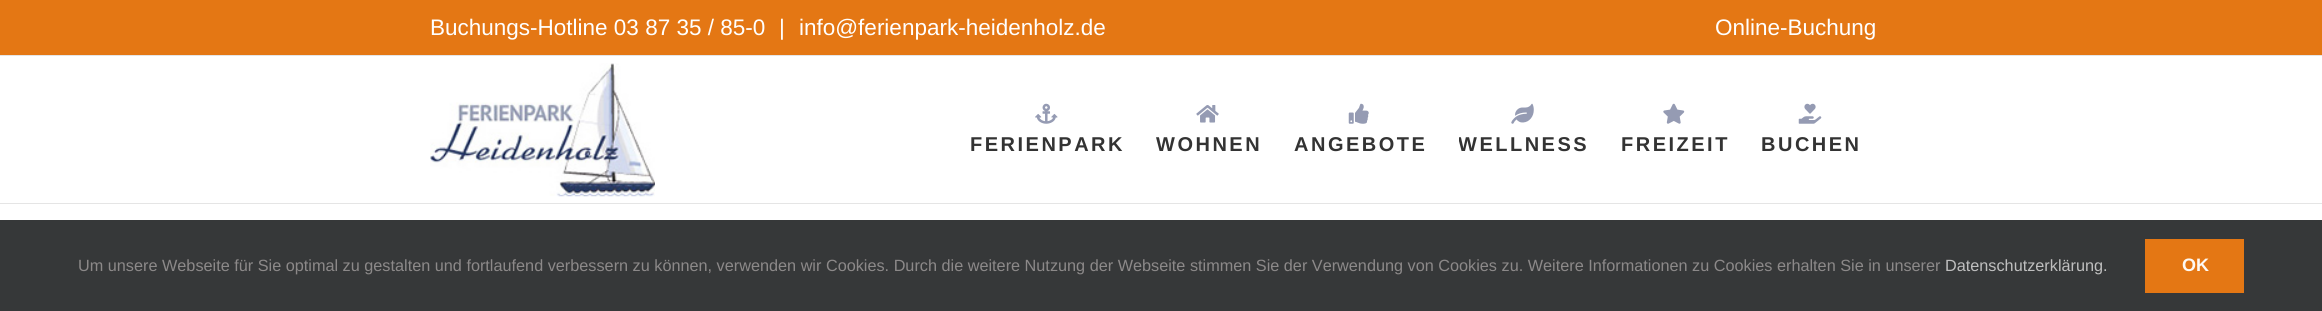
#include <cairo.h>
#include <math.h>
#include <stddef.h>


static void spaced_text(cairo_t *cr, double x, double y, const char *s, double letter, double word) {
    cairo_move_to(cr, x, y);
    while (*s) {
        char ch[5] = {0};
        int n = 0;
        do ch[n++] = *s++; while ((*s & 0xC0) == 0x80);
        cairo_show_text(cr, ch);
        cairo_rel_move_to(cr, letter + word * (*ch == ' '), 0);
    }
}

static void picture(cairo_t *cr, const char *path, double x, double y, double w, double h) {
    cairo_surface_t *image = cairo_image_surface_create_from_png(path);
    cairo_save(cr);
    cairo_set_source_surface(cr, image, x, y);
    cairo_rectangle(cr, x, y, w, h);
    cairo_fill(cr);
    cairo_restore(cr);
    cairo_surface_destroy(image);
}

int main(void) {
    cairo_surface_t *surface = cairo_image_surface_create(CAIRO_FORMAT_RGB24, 2322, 311);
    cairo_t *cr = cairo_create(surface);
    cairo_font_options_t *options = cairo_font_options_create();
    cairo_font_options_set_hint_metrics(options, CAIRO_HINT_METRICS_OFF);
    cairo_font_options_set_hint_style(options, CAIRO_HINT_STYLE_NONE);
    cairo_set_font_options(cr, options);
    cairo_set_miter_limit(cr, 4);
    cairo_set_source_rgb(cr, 1, 1, 1);
    cairo_paint(cr);
    cairo_set_source_rgb(cr, 0.894, 0.467, 0.082);
    cairo_rectangle(cr, 0, 0, 2322, 55);
    cairo_fill(cr);
    cairo_set_source_rgb(cr, 0.898, 0.898, 0.898);
    cairo_rectangle(cr, 0, 55, 2322, 1);
    cairo_fill(cr);
    cairo_select_font_face(cr, "Liberation Sans", CAIRO_FONT_SLANT_NORMAL, CAIRO_FONT_WEIGHT_NORMAL);
    cairo_set_font_size(cr, 22.5);
    cairo_set_source_rgb(cr, 1, 1, 1);
    cairo_move_to(cr, 430, 35);
    cairo_show_text(cr, "Buchungs-Hotline 03 87 35 / 85-0");
    cairo_move_to(cr, 779, 35);
    cairo_show_text(cr, "|");
    cairo_move_to(cr, 799, 35);
    cairo_show_text(cr, "info@ferienpark-heidenholz.de");
    cairo_move_to(cr, 1715, 35);
    cairo_show_text(cr, "Online-Buchung");
    cairo_set_source_rgb(cr, 0.898, 0.898, 0.898);
    cairo_rectangle(cr, 0, 203, 2322, 1);
    cairo_fill(cr);
    picture(cr, "img1.png", 430, 63, 225, 134);
    picture(cr, "img2.png", 1035, 103, 23, 21);
    cairo_select_font_face(cr, "Liberation Sans", CAIRO_FONT_SLANT_NORMAL, CAIRO_FONT_WEIGHT_BOLD);
    cairo_set_font_size(cr, 20);
    cairo_set_source_rgb(cr, 0.2, 0.2, 0.2);
    spaced_text(cr, 970, 151, "FERIENPARK", 2.5, 0);
    picture(cr, "img3.png", 1196, 105, 23, 18);
    spaced_text(cr, 1156, 151, "WOHNEN", 2.5, 0);
    picture(cr, "img4.png", 1348, 103, 21, 21);
    spaced_text(cr, 1294, 151, "ANGEBOTE", 2.5, 0);
    picture(cr, "img5.png", 1511, 103, 23, 21);
    cairo_save(cr);
    cairo_rectangle(cr, 1459, 56, 161, 147);
    cairo_clip(cr);
    spaced_text(cr, 1458, 151, "WELLNESS", 2.5, 0);
    cairo_restore(cr);
    picture(cr, "img6.png", 1663, 103, 22, 21);
    spaced_text(cr, 1621, 151, "FREIZEIT", 2.5, 0);
    picture(cr, "img7.png", 1798, 103, 24, 21);
    spaced_text(cr, 1761, 151, "BUCHEN", 2.5, 0);
    cairo_set_source_rgb(cr, 0.212, 0.22, 0.224);
    cairo_rectangle(cr, 0, 220, 2322, 91);
    cairo_fill(cr);
    cairo_select_font_face(cr, "Liberation Sans", CAIRO_FONT_SLANT_NORMAL, CAIRO_FONT_WEIGHT_NORMAL);
    cairo_set_font_size(cr, 16.25);
    cairo_set_source_rgb(cr, 0.549, 0.537, 0.537);
    cairo_move_to(cr, 78, 271);
    cairo_show_text(cr, "Um unsere Webseite für Sie optimal zu gestalten und fortlaufend verbessern zu können, verwenden wir Cookies. Durch die weitere Nutzung der Webseite stimmen Sie der Verwendung von Cookies zu. Weitere Informationen zu Cookies erhalten Sie in unserer");
    cairo_set_source_rgb(cr, 0.749, 0.749, 0.749);
    cairo_move_to(cr, 1945, 271);
    cairo_show_text(cr, "Datenschutzerklärung.");
    cairo_set_source_rgb(cr, 0.894, 0.467, 0.082);
    cairo_rectangle(cr, 2145, 239, 99, 54);
    cairo_fill(cr);
    cairo_select_font_face(cr, "Liberation Sans", CAIRO_FONT_SLANT_NORMAL, CAIRO_FONT_WEIGHT_BOLD);
    cairo_set_font_size(cr, 18);
    cairo_set_source_rgb(cr, 0.996, 0.973, 0.953);
    cairo_move_to(cr, 2182, 271);
    cairo_show_text(cr, "OK");
    cairo_surface_write_to_png(surface, "page.png");
    cairo_font_options_destroy(options);
    cairo_destroy(cr);
    cairo_surface_destroy(surface);
    return 0;
}
